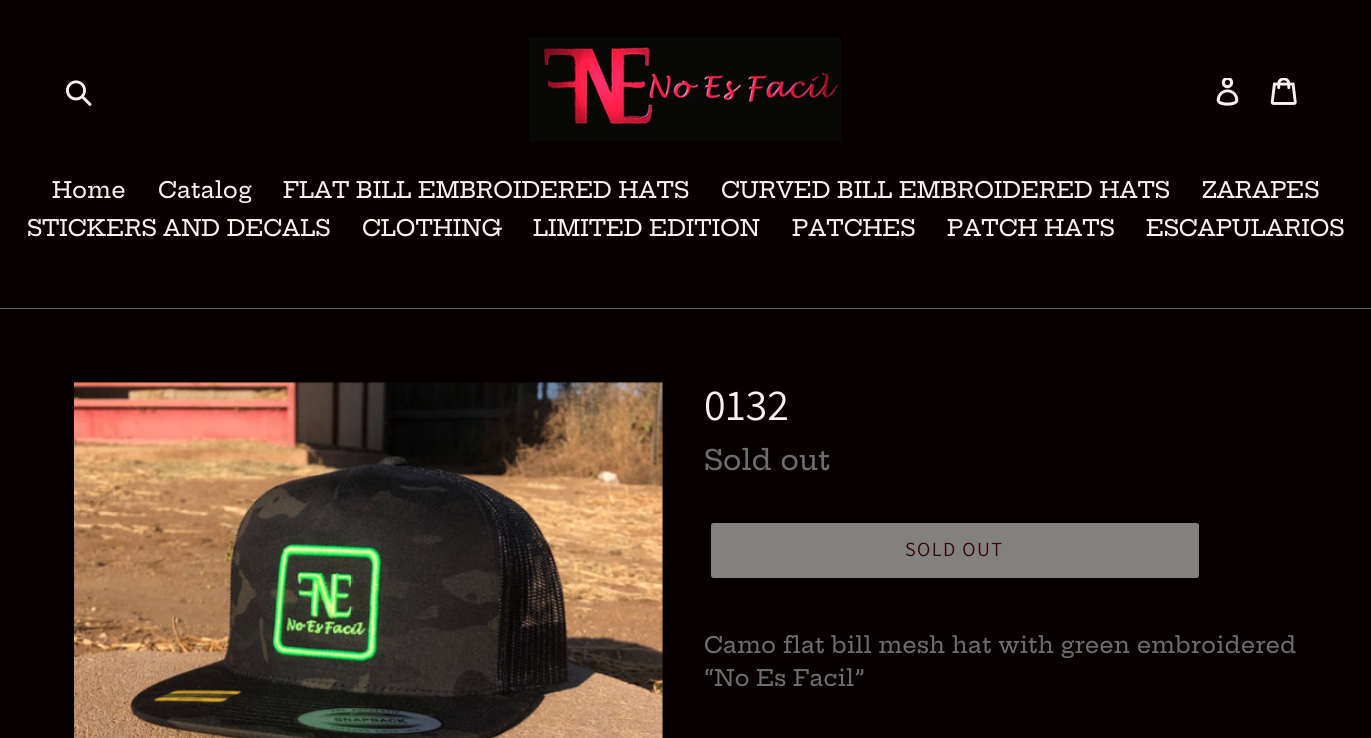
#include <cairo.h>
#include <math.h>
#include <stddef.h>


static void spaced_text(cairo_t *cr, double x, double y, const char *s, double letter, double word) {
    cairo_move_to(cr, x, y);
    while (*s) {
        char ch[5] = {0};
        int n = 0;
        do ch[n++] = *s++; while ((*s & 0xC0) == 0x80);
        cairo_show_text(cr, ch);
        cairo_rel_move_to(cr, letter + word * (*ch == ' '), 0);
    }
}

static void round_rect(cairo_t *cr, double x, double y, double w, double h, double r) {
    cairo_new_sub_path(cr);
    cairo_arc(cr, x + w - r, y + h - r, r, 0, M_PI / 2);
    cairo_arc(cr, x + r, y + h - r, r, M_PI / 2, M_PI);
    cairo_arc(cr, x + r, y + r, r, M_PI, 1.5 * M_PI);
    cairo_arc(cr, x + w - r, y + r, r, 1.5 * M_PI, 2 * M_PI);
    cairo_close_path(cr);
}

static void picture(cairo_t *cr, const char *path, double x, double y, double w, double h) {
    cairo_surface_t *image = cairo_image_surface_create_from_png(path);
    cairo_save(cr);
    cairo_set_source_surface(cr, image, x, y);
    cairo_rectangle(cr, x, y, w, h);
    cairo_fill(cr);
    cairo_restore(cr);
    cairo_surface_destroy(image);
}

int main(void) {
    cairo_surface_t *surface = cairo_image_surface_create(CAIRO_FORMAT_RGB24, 1371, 738);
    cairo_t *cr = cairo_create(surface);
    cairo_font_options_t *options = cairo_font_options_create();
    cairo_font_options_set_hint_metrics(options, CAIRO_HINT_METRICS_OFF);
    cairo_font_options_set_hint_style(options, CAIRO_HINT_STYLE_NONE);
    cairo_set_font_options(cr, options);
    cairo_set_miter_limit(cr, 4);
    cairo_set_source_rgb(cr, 0.027, 0, 0);
    cairo_paint(cr);
    picture(cr, "img1.png", 66, 80, 26, 26);
    picture(cr, "img2.png", 529, 37, 312, 104);
    picture(cr, "img3.png", 1216, 78, 23, 28);
    picture(cr, "img4.png", 1270, 78, 27, 27);
    cairo_set_source_rgb(cr, 0.384, 0.404, 0.443);
    cairo_rectangle(cr, 0, 308, 1371, 1);
    cairo_fill(cr);
    cairo_select_font_face(cr, "Hepta Slab Medium", CAIRO_FONT_SLANT_NORMAL, CAIRO_FONT_WEIGHT_NORMAL);
    cairo_set_font_size(cr, 22.5);
    cairo_set_source_rgb(cr, 0.98, 0.945, 0.945);
    cairo_move_to(cr, 52, 198);
    cairo_show_text(cr, "Home");
    cairo_move_to(cr, 158, 198);
    cairo_show_text(cr, "Catalog");
    cairo_move_to(cr, 283, 198);
    cairo_show_text(cr, "FLAT BILL EMBROIDERED HATS");
    cairo_move_to(cr, 721, 198);
    cairo_show_text(cr, "CURVED BILL EMBROIDERED HATS");
    cairo_move_to(cr, 1202, 198);
    cairo_show_text(cr, "ZARAPES");
    cairo_move_to(cr, 27, 236);
    cairo_show_text(cr, "STICKERS AND DECALS");
    cairo_move_to(cr, 362, 236);
    cairo_show_text(cr, "CLOTHING");
    cairo_move_to(cr, 533, 236);
    cairo_show_text(cr, "LIMITED EDITION");
    cairo_move_to(cr, 792, 236);
    cairo_show_text(cr, "PATCHES");
    cairo_move_to(cr, 947, 236);
    cairo_show_text(cr, "PATCH HATS");
    cairo_move_to(cr, 1146, 236);
    cairo_show_text(cr, "ESCAPULARIOS");
    picture(cr, "img5.png", 74, 382, 589, 356);
    cairo_select_font_face(cr, "Assistant", CAIRO_FONT_SLANT_NORMAL, CAIRO_FONT_WEIGHT_NORMAL);
    cairo_set_font_size(cr, 44);
    cairo_move_to(cr, 704, 420);
    cairo_show_text(cr, "0132");
    cairo_select_font_face(cr, "Hepta Slab Medium", CAIRO_FONT_SLANT_NORMAL, CAIRO_FONT_WEIGHT_NORMAL);
    cairo_set_font_size(cr, 28);
    cairo_set_source_rgb(cr, 0.427, 0.427, 0.427);
    cairo_move_to(cr, 704, 470);
    cairo_show_text(cr, "Sold out");
    cairo_set_source_rgb(cr, 0.514, 0.502, 0.502);
    round_rect(cr, 711, 523, 488, 55, 2.5);
    cairo_fill(cr);
    cairo_select_font_face(cr, "Assistant", CAIRO_FONT_SLANT_NORMAL, CAIRO_FONT_WEIGHT_NORMAL);
    cairo_set_font_size(cr, 20);
    cairo_set_source_rgb(cr, 0.216, 0.035, 0.035);
    spaced_text(cr, 905, 556, "SOLD OUT", 1.5, 0);
    cairo_select_font_face(cr, "Hepta Slab Medium", CAIRO_FONT_SLANT_NORMAL, CAIRO_FONT_WEIGHT_NORMAL);
    cairo_set_font_size(cr, 22.5);
    cairo_set_source_rgb(cr, 0.427, 0.427, 0.427);
    cairo_move_to(cr, 704, 653);
    cairo_show_text(cr, "Camo flat bill mesh hat with green embroidered");
    cairo_move_to(cr, 704, 686);
    cairo_show_text(cr, "“No Es Facil”");
    cairo_surface_write_to_png(surface, "page.png");
    cairo_font_options_destroy(options);
    cairo_destroy(cr);
    cairo_surface_destroy(surface);
    return 0;
}
